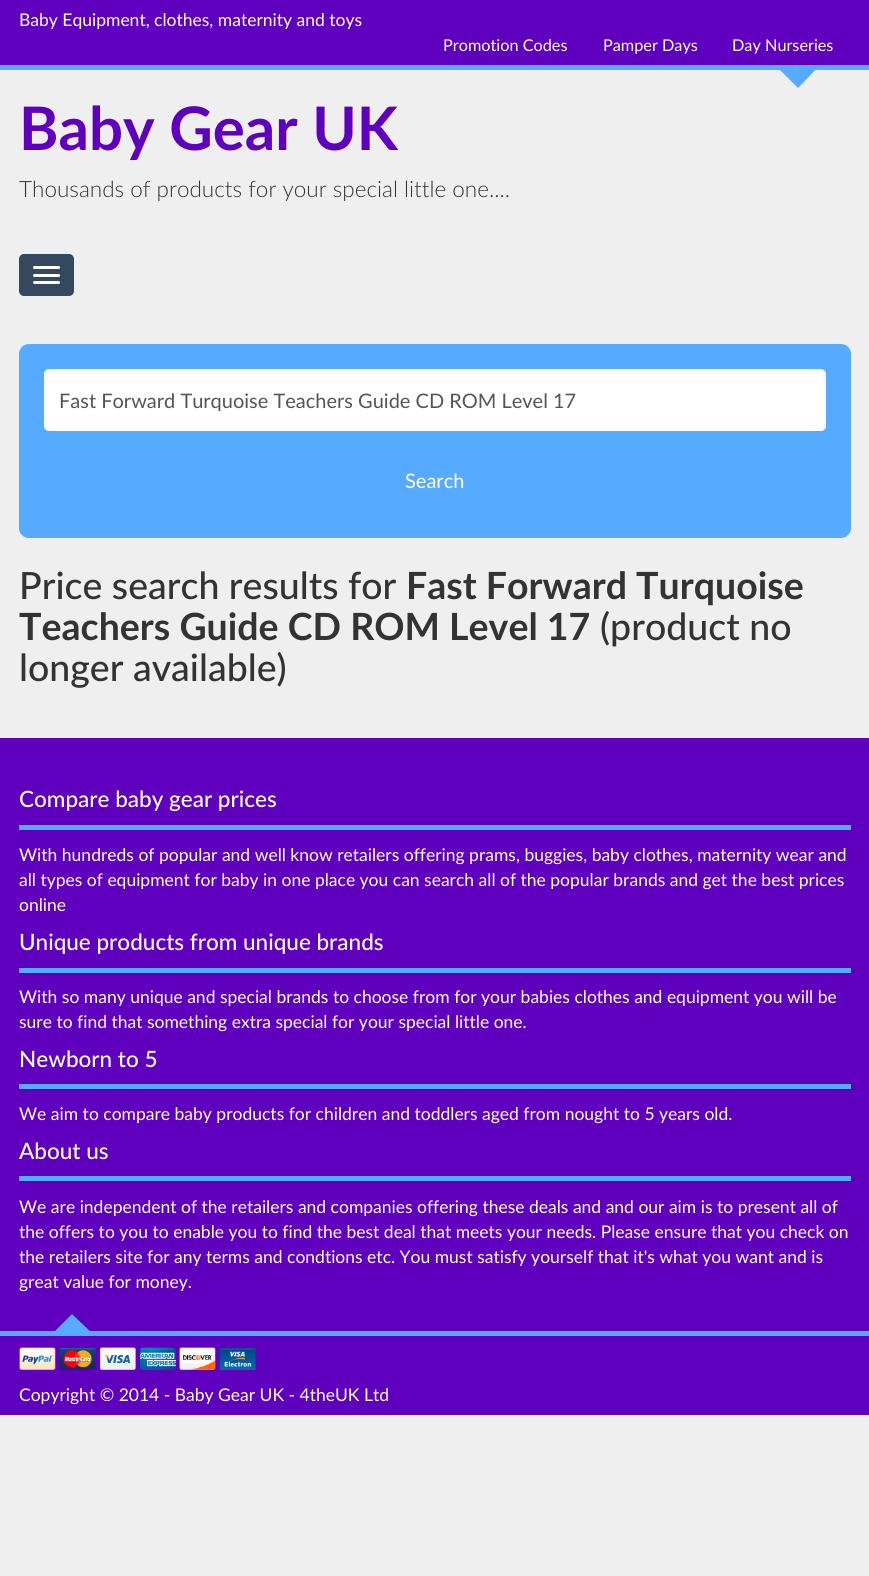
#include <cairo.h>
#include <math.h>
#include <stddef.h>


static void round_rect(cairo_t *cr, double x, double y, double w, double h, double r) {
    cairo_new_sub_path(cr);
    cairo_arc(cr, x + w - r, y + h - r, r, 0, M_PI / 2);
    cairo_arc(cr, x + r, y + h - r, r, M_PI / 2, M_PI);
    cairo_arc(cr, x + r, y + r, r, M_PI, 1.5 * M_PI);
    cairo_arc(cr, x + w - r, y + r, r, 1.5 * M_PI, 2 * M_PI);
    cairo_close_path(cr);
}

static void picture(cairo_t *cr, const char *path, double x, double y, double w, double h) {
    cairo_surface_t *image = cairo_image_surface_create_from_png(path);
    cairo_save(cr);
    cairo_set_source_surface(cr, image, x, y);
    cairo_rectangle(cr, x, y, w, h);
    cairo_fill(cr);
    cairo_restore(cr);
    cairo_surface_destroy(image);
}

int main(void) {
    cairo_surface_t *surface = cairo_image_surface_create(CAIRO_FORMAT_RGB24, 869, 1576);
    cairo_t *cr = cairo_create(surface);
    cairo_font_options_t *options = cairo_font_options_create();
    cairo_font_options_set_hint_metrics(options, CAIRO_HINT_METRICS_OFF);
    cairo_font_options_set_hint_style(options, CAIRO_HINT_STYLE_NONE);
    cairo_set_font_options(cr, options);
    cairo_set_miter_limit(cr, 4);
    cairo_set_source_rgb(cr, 0.937, 0.937, 0.937);
    cairo_paint(cr);
    cairo_set_source_rgb(cr, 0.373, 0, 0.749);
    cairo_rectangle(cr, 0, 0, 869, 65);
    cairo_fill(cr);
    cairo_set_source_rgb(cr, 0.337, 0.667, 1);
    cairo_new_path(cr);
    cairo_move_to(cr, 775, 65);
    cairo_line_to(cr, 820, 65);
    cairo_line_to(cr, 798, 88);
    cairo_close_path(cr);
    cairo_fill(cr);
    cairo_rectangle(cr, 0, 65, 869, 5);
    cairo_fill(cr);
    cairo_select_font_face(cr, "Lato", CAIRO_FONT_SLANT_NORMAL, CAIRO_FONT_WEIGHT_NORMAL);
    cairo_set_font_size(cr, 17.5);
    cairo_set_source_rgb(cr, 1, 1, 1);
    cairo_move_to(cr, 19, 26);
    cairo_show_text(cr, "Baby Equipment, clothes, maternity and toys");
    cairo_set_font_size(cr, 16.25);
    cairo_move_to(cr, 443, 51);
    cairo_show_text(cr, "Promotion Codes");
    cairo_move_to(cr, 603, 51);
    cairo_show_text(cr, "Pamper Days");
    cairo_move_to(cr, 732, 51);
    cairo_show_text(cr, "Day Nurseries");
    cairo_select_font_face(cr, "Lato", CAIRO_FONT_SLANT_NORMAL, CAIRO_FONT_WEIGHT_BOLD);
    cairo_set_font_size(cr, 60);
    cairo_set_source_rgb(cr, 0.373, 0, 0.749);
    cairo_move_to(cr, 19, 150);
    cairo_show_text(cr, "Baby Gear UK");
    cairo_select_font_face(cr, "Lato Light", CAIRO_FONT_SLANT_NORMAL, CAIRO_FONT_WEIGHT_NORMAL);
    cairo_set_font_size(cr, 22.5);
    cairo_set_source_rgb(cr, 0.2, 0.2, 0.2);
    cairo_move_to(cr, 19, 197);
    cairo_show_text(cr, "Thousands of products for your special little one....");
    cairo_set_source_rgb(cr, 0.204, 0.286, 0.369);
    round_rect(cr, 19, 254, 55, 42, 5);
    cairo_fill(cr);
    cairo_set_source_rgb(cr, 1, 1, 1);
    round_rect(cr, 33, 266, 27, 3, 1.5);
    cairo_fill(cr);
    round_rect(cr, 33, 274, 27, 3, 1.5);
    cairo_fill(cr);
    round_rect(cr, 33, 281, 27, 3, 1.5);
    cairo_fill(cr);
    cairo_set_source_rgb(cr, 0.337, 0.667, 1);
    round_rect(cr, 19, 344, 832, 194, 10);
    cairo_fill(cr);
    cairo_set_source_rgb(cr, 1, 1, 1);
    round_rect(cr, 44, 369, 782, 62, 5);
    cairo_fill(cr);
    cairo_set_source_rgba(cr, 0, 0, 0, 0.07);
    cairo_new_path(cr);
    cairo_move_to(cr, 49, 370);
    cairo_line_to(cr, 821, 370);
    cairo_curve_to(cr, 824, 370, 826, 372, 826, 375);
    cairo_line_to(cr, 826, 374);
    cairo_curve_to(cr, 826, 371, 824, 369, 821, 369);
    cairo_line_to(cr, 49, 369);
    cairo_curve_to(cr, 46, 369, 44, 371, 44, 374);
    cairo_line_to(cr, 44, 375);
    cairo_curve_to(cr, 44, 372, 46, 370, 49, 370);
    cairo_close_path(cr);
    cairo_fill(cr);
    cairo_save(cr);
    cairo_rectangle(cr, 59, 388, 752, 23);
    cairo_clip(cr);
    cairo_select_font_face(cr, "Lato", CAIRO_FONT_SLANT_NORMAL, CAIRO_FONT_WEIGHT_NORMAL);
    cairo_set_font_size(cr, 20);
    cairo_set_source_rgb(cr, 0.333, 0.333, 0.333);
    cairo_move_to(cr, 59, 408);
    cairo_show_text(cr, "Fast Forward Turquoise Teachers Guide CD ROM Level 17");
    cairo_restore(cr);
    cairo_select_font_face(cr, "Lato", CAIRO_FONT_SLANT_NORMAL, CAIRO_FONT_WEIGHT_NORMAL);
    cairo_set_font_size(cr, 20);
    cairo_set_source_rgb(cr, 1, 1, 1);
    cairo_move_to(cr, 405, 488);
    cairo_show_text(cr, "Search");
    cairo_select_font_face(cr, "Lato Medium", CAIRO_FONT_SLANT_NORMAL, CAIRO_FONT_WEIGHT_NORMAL);
    cairo_set_font_size(cr, 37.5);
    cairo_set_source_rgb(cr, 0.2, 0.2, 0.2);
    cairo_move_to(cr, 19, 599);
    cairo_show_text(cr, "Price search results for");
    cairo_select_font_face(cr, "Lato", CAIRO_FONT_SLANT_NORMAL, CAIRO_FONT_WEIGHT_BOLD);
    cairo_move_to(cr, 406, 599);
    cairo_show_text(cr, "Fast Forward Turquoise");
    cairo_move_to(cr, 19, 640);
    cairo_show_text(cr, "Teachers Guide CD ROM Level 17");
    cairo_select_font_face(cr, "Lato Medium", CAIRO_FONT_SLANT_NORMAL, CAIRO_FONT_WEIGHT_NORMAL);
    cairo_move_to(cr, 600, 640);
    cairo_show_text(cr, "(product no");
    cairo_move_to(cr, 19, 681);
    cairo_show_text(cr, "longer available)");
    cairo_set_source_rgb(cr, 0.373, 0, 0.749);
    cairo_rectangle(cr, 0, 738, 869, 593);
    cairo_fill(cr);
    cairo_set_source_rgb(cr, 0.337, 0.667, 1);
    cairo_rectangle(cr, 19, 825, 832, 5);
    cairo_fill(cr);
    cairo_set_font_size(cr, 22.5);
    cairo_set_source_rgb(cr, 1, 1, 1);
    cairo_move_to(cr, 19, 807);
    cairo_show_text(cr, "Compare baby gear prices");
    cairo_select_font_face(cr, "Lato", CAIRO_FONT_SLANT_NORMAL, CAIRO_FONT_WEIGHT_NORMAL);
    cairo_set_font_size(cr, 17.5);
    cairo_move_to(cr, 19, 861);
    cairo_show_text(cr, "With hundreds of popular and well know retailers offering prams, buggies, baby clothes, maternity wear and");
    cairo_move_to(cr, 19, 886);
    cairo_show_text(cr, "all types of equipment for baby in one place you can search all of the popular brands and get the best prices");
    cairo_move_to(cr, 19, 911);
    cairo_show_text(cr, "online");
    cairo_set_source_rgb(cr, 0.337, 0.667, 1);
    cairo_rectangle(cr, 19, 968, 832, 5);
    cairo_fill(cr);
    cairo_select_font_face(cr, "Lato Medium", CAIRO_FONT_SLANT_NORMAL, CAIRO_FONT_WEIGHT_NORMAL);
    cairo_set_font_size(cr, 22.5);
    cairo_set_source_rgb(cr, 1, 1, 1);
    cairo_move_to(cr, 19, 950);
    cairo_show_text(cr, "Unique products from unique brands");
    cairo_select_font_face(cr, "Lato", CAIRO_FONT_SLANT_NORMAL, CAIRO_FONT_WEIGHT_NORMAL);
    cairo_set_font_size(cr, 17.5);
    cairo_move_to(cr, 19, 1003);
    cairo_show_text(cr, "With so many unique and special brands to choose from for your babies clothes and equipment you will be");
    cairo_move_to(cr, 19, 1028);
    cairo_show_text(cr, "sure to find that something extra special for your special little one.");
    cairo_set_source_rgb(cr, 0.337, 0.667, 1);
    cairo_rectangle(cr, 19, 1084, 832, 5);
    cairo_fill(cr);
    cairo_select_font_face(cr, "Lato Medium", CAIRO_FONT_SLANT_NORMAL, CAIRO_FONT_WEIGHT_NORMAL);
    cairo_set_font_size(cr, 22.5);
    cairo_set_source_rgb(cr, 1, 1, 1);
    cairo_move_to(cr, 19, 1067);
    cairo_show_text(cr, "Newborn to 5");
    cairo_select_font_face(cr, "Lato", CAIRO_FONT_SLANT_NORMAL, CAIRO_FONT_WEIGHT_NORMAL);
    cairo_set_font_size(cr, 17.5);
    cairo_move_to(cr, 19, 1120);
    cairo_show_text(cr, "We aim to compare baby products for children and toddlers aged from nought to 5 years old.");
    cairo_set_source_rgb(cr, 0.337, 0.667, 1);
    cairo_rectangle(cr, 19, 1176, 832, 5);
    cairo_fill(cr);
    cairo_select_font_face(cr, "Lato Medium", CAIRO_FONT_SLANT_NORMAL, CAIRO_FONT_WEIGHT_NORMAL);
    cairo_set_font_size(cr, 22.5);
    cairo_set_source_rgb(cr, 1, 1, 1);
    cairo_move_to(cr, 19, 1159);
    cairo_show_text(cr, "About us");
    cairo_select_font_face(cr, "Lato", CAIRO_FONT_SLANT_NORMAL, CAIRO_FONT_WEIGHT_NORMAL);
    cairo_set_font_size(cr, 17.5);
    cairo_move_to(cr, 19, 1213);
    cairo_show_text(cr, "We are independent of the retailers and companies offering these deals and and our aim is to present all of");
    cairo_move_to(cr, 19, 1238);
    cairo_show_text(cr, "the offers to you to enable you to find the best deal that meets your needs. Please ensure that you check on");
    cairo_move_to(cr, 19, 1263);
    cairo_show_text(cr, "the retailers site for any terms and condtions etc. You must satisfy yourself that it's what you want and is");
    cairo_move_to(cr, 19, 1288);
    cairo_show_text(cr, "great value for money.");
    cairo_set_source_rgb(cr, 0.373, 0, 0.749);
    cairo_rectangle(cr, 0, 1336, 869, 79);
    cairo_fill(cr);
    cairo_set_source_rgb(cr, 0.337, 0.667, 1);
    cairo_rectangle(cr, 0, 1331, 869, 5);
    cairo_fill(cr);
    cairo_new_path(cr);
    cairo_move_to(cr, 95, 1336);
    cairo_line_to(cr, 50, 1336);
    cairo_line_to(cr, 72, 1314);
    cairo_close_path(cr);
    cairo_fill(cr);
    picture(cr, "img1.png", 19, 1347, 237, 23);
    cairo_set_source_rgb(cr, 1, 1, 1);
    cairo_move_to(cr, 19, 1401);
    cairo_show_text(cr, "Copyright © 2014 - Baby Gear UK - 4theUK Ltd");
    cairo_surface_write_to_png(surface, "page.png");
    cairo_font_options_destroy(options);
    cairo_destroy(cr);
    cairo_surface_destroy(surface);
    return 0;
}
